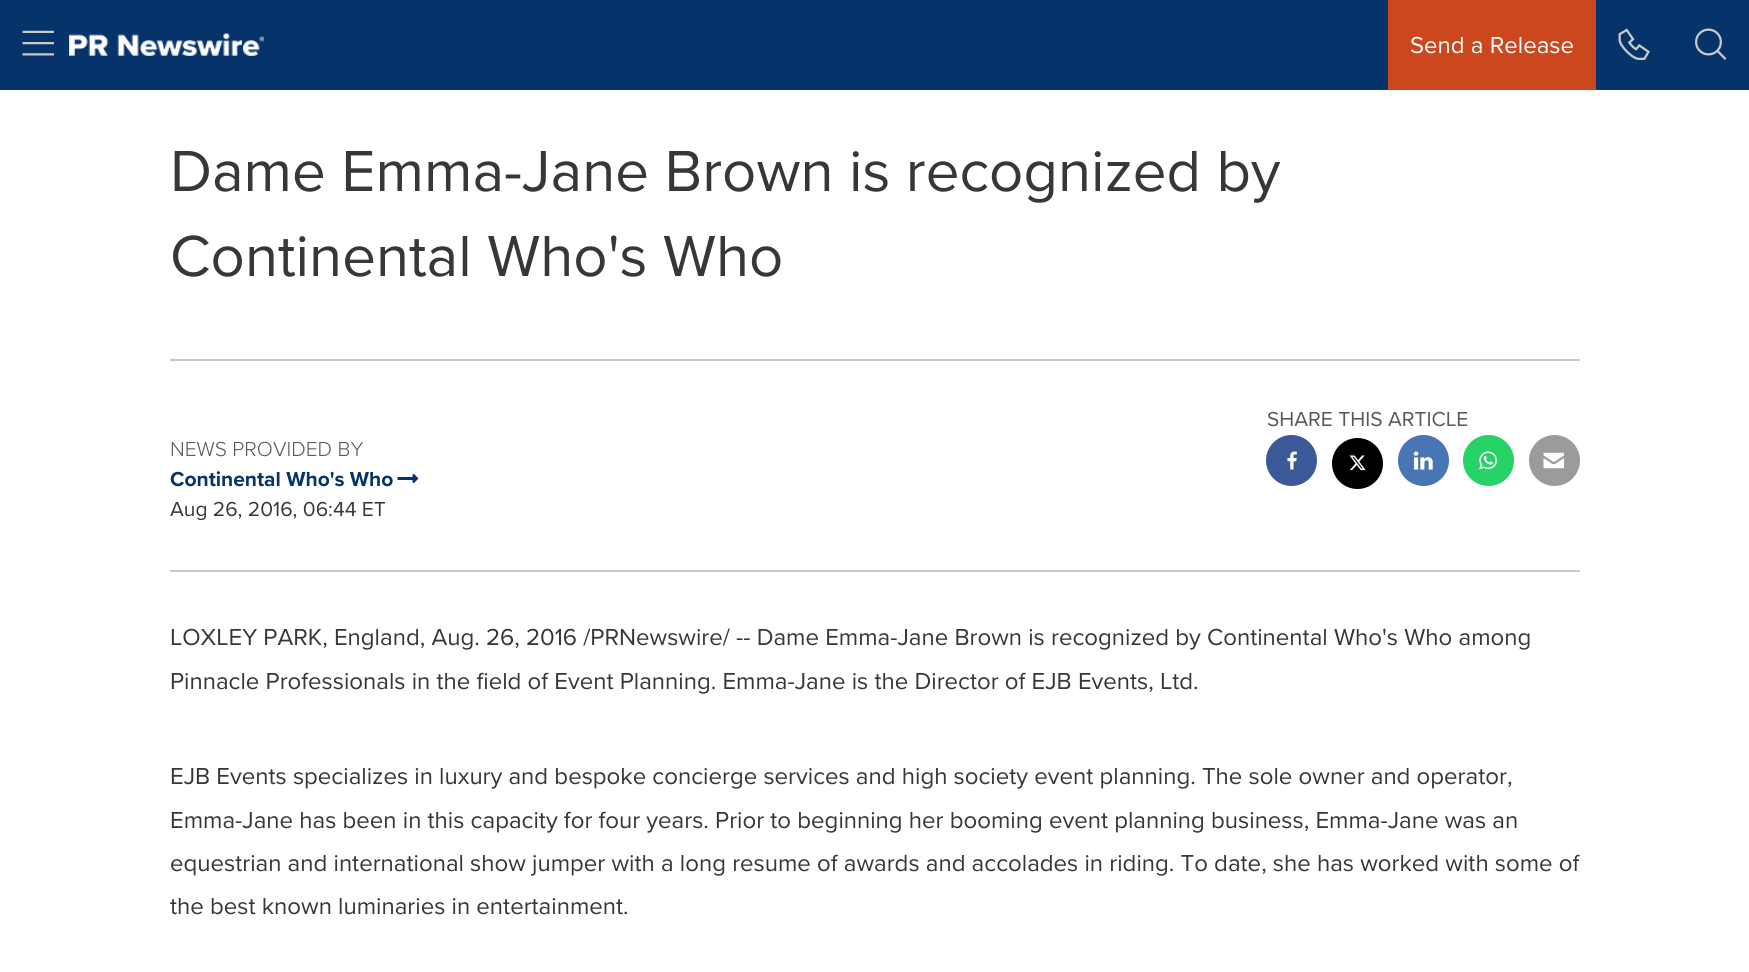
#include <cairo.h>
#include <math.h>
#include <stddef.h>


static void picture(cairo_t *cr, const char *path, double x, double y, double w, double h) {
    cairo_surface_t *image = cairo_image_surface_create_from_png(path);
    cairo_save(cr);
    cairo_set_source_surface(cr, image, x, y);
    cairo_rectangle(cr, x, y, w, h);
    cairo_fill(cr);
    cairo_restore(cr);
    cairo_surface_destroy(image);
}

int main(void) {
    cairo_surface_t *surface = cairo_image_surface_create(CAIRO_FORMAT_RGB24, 1749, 972);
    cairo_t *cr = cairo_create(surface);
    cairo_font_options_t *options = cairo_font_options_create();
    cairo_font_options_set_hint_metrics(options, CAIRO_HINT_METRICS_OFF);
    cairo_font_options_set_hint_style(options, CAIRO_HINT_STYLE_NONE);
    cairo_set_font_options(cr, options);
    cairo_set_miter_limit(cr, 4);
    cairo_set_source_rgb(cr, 1, 1, 1);
    cairo_paint(cr);
    cairo_set_source_rgb(cr, 0.024, 0.2, 0.412);
    cairo_rectangle(cr, 0, 0, 1749, 90);
    cairo_fill(cr);
    picture(cr, "img1.png", 22, 30, 32, 26);
    picture(cr, "img2.png", 69, 33, 195, 23);
    cairo_set_source_rgb(cr, 0.8, 0.278, 0.118);
    cairo_rectangle(cr, 1388, 0, 208, 90);
    cairo_fill(cr);
    cairo_select_font_face(cr, "Proxima Nova", CAIRO_FONT_SLANT_NORMAL, CAIRO_FONT_WEIGHT_NORMAL);
    cairo_set_font_size(cr, 24);
    cairo_set_source_rgb(cr, 1, 1, 1);
    cairo_move_to(cr, 1410, 53);
    cairo_show_text(cr, "Send a Release");
    picture(cr, "img3.png", 1618, 28, 32, 32);
    picture(cr, "img4.png", 1695, 28, 32, 32);
    cairo_set_font_size(cr, 60);
    cairo_set_source_rgb(cr, 0.216, 0.216, 0.216);
    cairo_move_to(cr, 170, 191);
    cairo_show_text(cr, "Dame Emma-Jane Brown is recognized by");
    cairo_move_to(cr, 170, 276);
    cairo_show_text(cr, "Continental Who's Who");
    cairo_set_source_rgb(cr, 0.792, 0.784, 0.784);
    cairo_rectangle(cr, 170, 359, 1410, 2);
    cairo_fill(cr);
    cairo_set_font_size(cr, 21);
    cairo_set_source_rgb(cr, 0.341, 0.341, 0.341);
    cairo_move_to(cr, 1267, 426);
    cairo_show_text(cr, "SHARE THIS ARTICLE");
    cairo_set_source_rgb(cr, 0.231, 0.349, 0.6);
    cairo_new_path(cr);
    cairo_arc(cr, 1291.5, 460.5, 25.5, 0, 2 * M_PI);
    cairo_fill(cr);
    picture(cr, "img5.png", 1287, 451, 10, 19);
    cairo_set_source_rgb(cr, 0, 0, 0);
    cairo_arc(cr, 1357.5, 463.5, 25.5, 0, 2 * M_PI);
    cairo_fill(cr);
    picture(cr, "img6.png", 1349, 455, 17, 16);
    cairo_set_source_rgb(cr, 0.282, 0.459, 0.706);
    cairo_arc(cr, 1423.5, 460.5, 25.5, 0, 2 * M_PI);
    cairo_fill(cr);
    picture(cr, "img7.png", 1413, 451, 20, 19);
    cairo_set_source_rgb(cr, 0.145, 0.827, 0.4);
    cairo_arc(cr, 1488.5, 460.5, 25.5, 0, 2 * M_PI);
    cairo_fill(cr);
    picture(cr, "img8.png", 1479, 451, 18, 19);
    cairo_set_source_rgb(cr, 0.608, 0.608, 0.608);
    cairo_arc(cr, 1554.5, 460.5, 25.5, 0, 2 * M_PI);
    cairo_fill(cr);
    picture(cr, "img9.png", 1543, 452, 22, 17);
    cairo_select_font_face(cr, "Proxima Nova Light", CAIRO_FONT_SLANT_NORMAL, CAIRO_FONT_WEIGHT_NORMAL);
    cairo_set_source_rgb(cr, 0.341, 0.341, 0.341);
    cairo_move_to(cr, 170, 456);
    cairo_show_text(cr, "NEWS PROVIDED BY");
    cairo_select_font_face(cr, "Proxima Nova", CAIRO_FONT_SLANT_NORMAL, CAIRO_FONT_WEIGHT_BOLD);
    cairo_set_source_rgb(cr, 0.024, 0.2, 0.412);
    cairo_move_to(cr, 170, 486);
    cairo_show_text(cr, "Continental Who's Who");
    picture(cr, "img10.png", 397, 474, 22, 9);
    cairo_select_font_face(cr, "Proxima Nova", CAIRO_FONT_SLANT_NORMAL, CAIRO_FONT_WEIGHT_NORMAL);
    cairo_set_source_rgb(cr, 0.216, 0.216, 0.216);
    cairo_move_to(cr, 170, 516);
    cairo_show_text(cr, "Aug 26, 2016, 06:44 ET");
    cairo_set_source_rgb(cr, 0.792, 0.784, 0.784);
    cairo_rectangle(cr, 170, 570, 1410, 2);
    cairo_fill(cr);
    cairo_set_font_size(cr, 24);
    cairo_set_source_rgb(cr, 0.216, 0.216, 0.216);
    cairo_move_to(cr, 170, 645);
    cairo_show_text(cr, "LOXLEY PARK, England, Aug. 26, 2016 /PRNewswire/ -- Dame Emma-Jane Brown is recognized by Continental Who's Who among");
    cairo_move_to(cr, 170, 689);
    cairo_show_text(cr, "Pinnacle Professionals in the field of Event Planning. Emma-Jane is the Director of EJB Events, Ltd.");
    cairo_move_to(cr, 170, 784);
    cairo_show_text(cr, "EJB Events specializes in luxury and bespoke concierge services and high society event planning. The sole owner and operator,");
    cairo_move_to(cr, 170, 828);
    cairo_show_text(cr, "Emma-Jane has been in this capacity for four years. Prior to beginning her booming event planning business, Emma-Jane was an");
    cairo_move_to(cr, 170, 871);
    cairo_show_text(cr, "equestrian and international show jumper with a long resume of awards and accolades in riding. To date, she has worked with some of");
    cairo_move_to(cr, 170, 914);
    cairo_show_text(cr, "the best known luminaries in entertainment.");
    cairo_surface_write_to_png(surface, "page.png");
    cairo_font_options_destroy(options);
    cairo_destroy(cr);
    cairo_surface_destroy(surface);
    return 0;
}
